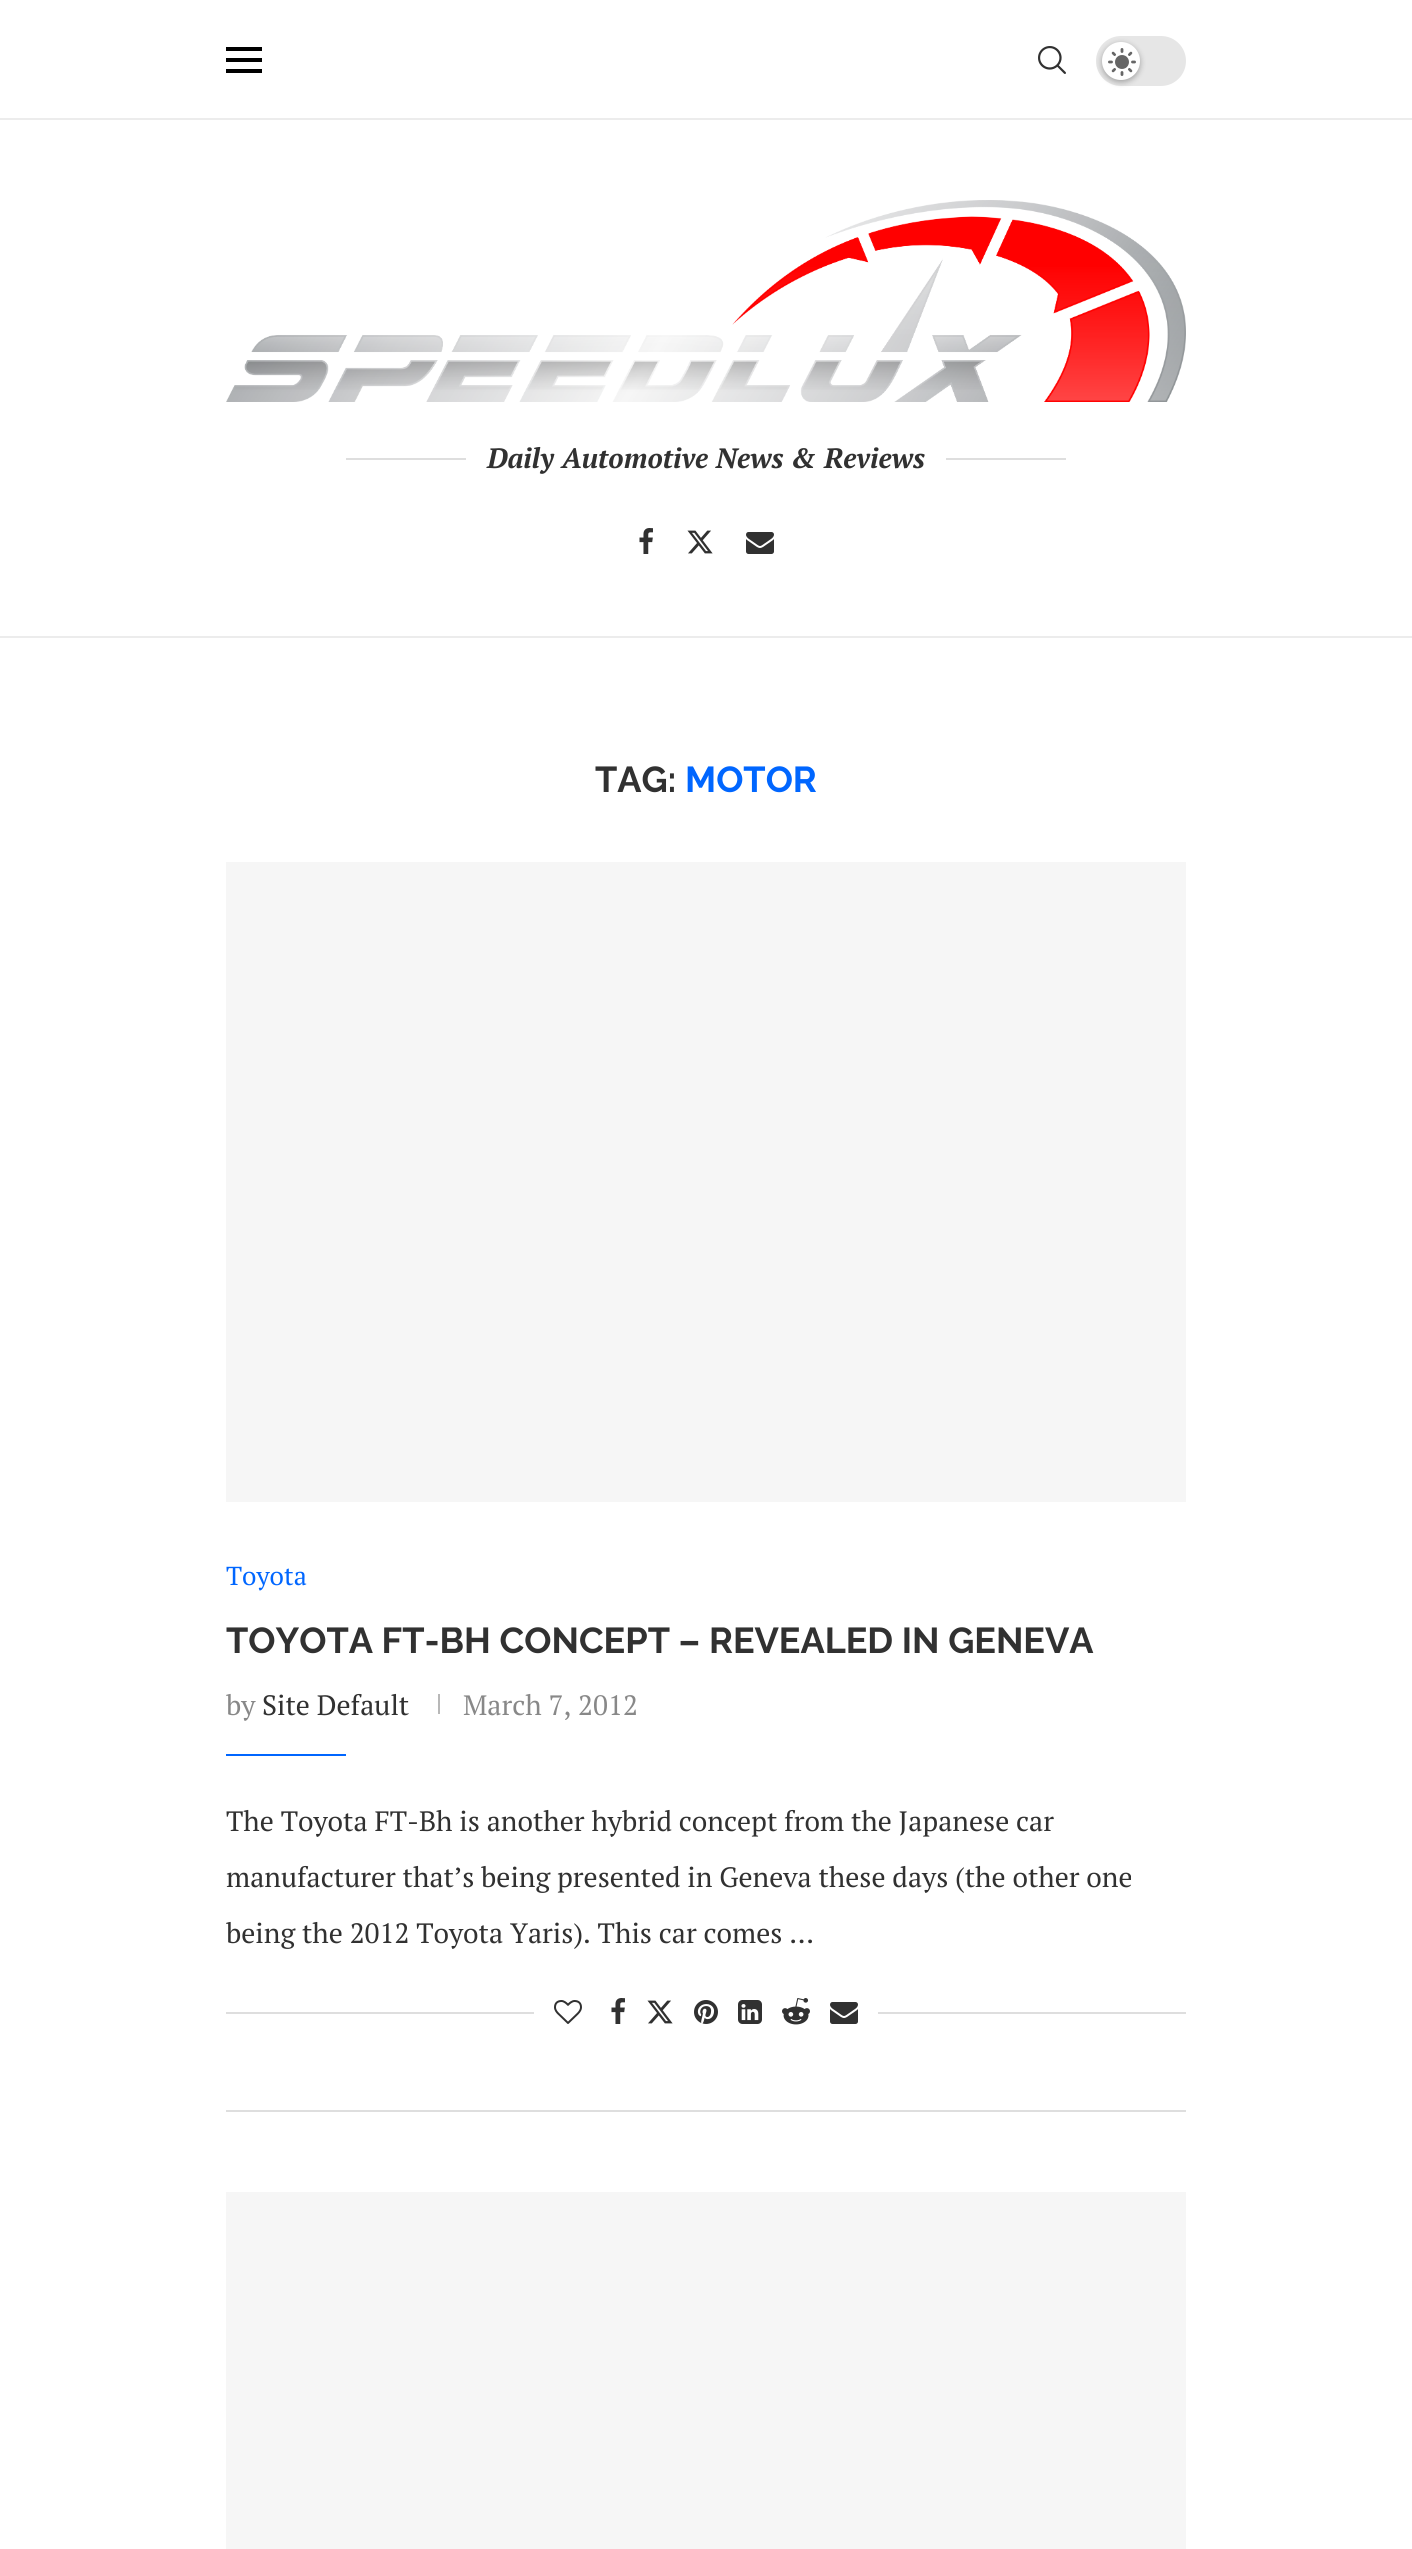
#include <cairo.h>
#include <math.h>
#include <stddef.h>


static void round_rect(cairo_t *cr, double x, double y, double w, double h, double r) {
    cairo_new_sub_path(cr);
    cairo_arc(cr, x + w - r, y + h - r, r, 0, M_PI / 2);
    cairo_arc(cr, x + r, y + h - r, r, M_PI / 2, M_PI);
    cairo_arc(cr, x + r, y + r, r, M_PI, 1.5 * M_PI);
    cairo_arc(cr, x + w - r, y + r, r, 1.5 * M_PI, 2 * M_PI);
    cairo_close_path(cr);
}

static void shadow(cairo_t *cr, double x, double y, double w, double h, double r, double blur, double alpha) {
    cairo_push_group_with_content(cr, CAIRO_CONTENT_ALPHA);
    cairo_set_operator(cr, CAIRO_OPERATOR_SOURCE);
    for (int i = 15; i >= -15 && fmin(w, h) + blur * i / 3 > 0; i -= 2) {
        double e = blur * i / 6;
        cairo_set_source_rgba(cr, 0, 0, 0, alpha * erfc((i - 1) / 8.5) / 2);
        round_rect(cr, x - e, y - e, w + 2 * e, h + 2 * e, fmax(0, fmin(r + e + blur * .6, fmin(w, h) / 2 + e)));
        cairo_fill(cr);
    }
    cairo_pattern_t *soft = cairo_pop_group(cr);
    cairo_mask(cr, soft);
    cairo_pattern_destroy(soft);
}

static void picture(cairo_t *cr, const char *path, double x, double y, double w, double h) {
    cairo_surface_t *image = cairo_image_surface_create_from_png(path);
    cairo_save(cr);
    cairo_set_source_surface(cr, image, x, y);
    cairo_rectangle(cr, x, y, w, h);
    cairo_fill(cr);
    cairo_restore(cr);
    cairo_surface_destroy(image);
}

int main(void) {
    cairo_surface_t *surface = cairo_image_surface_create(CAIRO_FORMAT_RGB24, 1412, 2549);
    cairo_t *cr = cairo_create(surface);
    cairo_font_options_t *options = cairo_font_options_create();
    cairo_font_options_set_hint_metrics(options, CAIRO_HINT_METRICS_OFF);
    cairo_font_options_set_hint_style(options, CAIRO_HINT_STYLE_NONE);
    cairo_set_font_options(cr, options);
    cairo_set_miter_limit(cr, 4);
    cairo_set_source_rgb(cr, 1, 1, 1);
    cairo_paint(cr);
    cairo_set_source_rgb(cr, 0.925, 0.925, 0.925);
    cairo_rectangle(cr, 0, 118, 1412, 2);
    cairo_fill(cr);
    cairo_set_source_rgb(cr, 0, 0, 0);
    cairo_rectangle(cr, 226, 47, 36, 4);
    cairo_fill(cr);
    cairo_rectangle(cr, 226, 58, 36, 4);
    cairo_fill(cr);
    cairo_rectangle(cr, 226, 69, 36, 4);
    cairo_fill(cr);
    picture(cr, "img1.png", 1038, 46, 28, 28);
    cairo_set_source_rgb(cr, 0.902, 0.902, 0.902);
    round_rect(cr, 1096, 36, 90, 50, 25);
    cairo_fill(cr);
    cairo_set_source_rgb(cr, 0, 0, 0);
    shadow(cr, 1102, 44, 38, 38, 19, 3, 0.3);
    cairo_set_source_rgb(cr, 1, 1, 1);
    cairo_arc(cr, 1121, 61, 19, 0, 2 * M_PI);
    cairo_fill(cr);
    picture(cr, "img2.png", 1108, 48, 28, 28);
    cairo_set_source_rgb(cr, 0.925, 0.925, 0.925);
    cairo_rectangle(cr, 0, 636, 1412, 2);
    cairo_fill(cr);
    picture(cr, "img3.png", 226, 200, 960, 202);
    cairo_set_source_rgb(cr, 0.871, 0.871, 0.871);
    cairo_rectangle(cr, 346, 458, 120, 2);
    cairo_fill(cr);
    cairo_select_font_face(cr, "PT Serif", CAIRO_FONT_SLANT_ITALIC, CAIRO_FONT_WEIGHT_BOLD);
    cairo_set_font_size(cr, 28);
    cairo_set_source_rgb(cr, 0.192, 0.192, 0.192);
    cairo_move_to(cr, 487, 468);
    cairo_show_text(cr, "Daily Automotive News & Reviews");
    cairo_set_source_rgb(cr, 0.871, 0.871, 0.871);
    cairo_rectangle(cr, 946, 458, 120, 2);
    cairo_fill(cr);
    picture(cr, "img4.png", 639, 528, 14, 26);
    picture(cr, "img5.png", 687, 530, 26, 24);
    picture(cr, "img6.png", 746, 532, 28, 22);
    cairo_select_font_face(cr, "Raleway", CAIRO_FONT_SLANT_NORMAL, CAIRO_FONT_WEIGHT_BOLD);
    cairo_set_font_size(cr, 36);
    cairo_set_source_rgb(cr, 0.192, 0.192, 0.192);
    cairo_move_to(cr, 595, 792);
    cairo_show_text(cr, "TAG:");
    cairo_set_source_rgb(cr, 0, 0.4, 1);
    cairo_move_to(cr, 685, 792);
    cairo_show_text(cr, "MOTOR");
    cairo_set_source_rgb(cr, 0.871, 0.871, 0.871);
    cairo_rectangle(cr, 226, 2110, 960, 2);
    cairo_fill(cr);
    cairo_set_source_rgb(cr, 0.961, 0.961, 0.961);
    cairo_rectangle(cr, 226, 862, 960, 640);
    cairo_fill(cr);
    cairo_select_font_face(cr, "PT Serif", CAIRO_FONT_SLANT_NORMAL, CAIRO_FONT_WEIGHT_NORMAL);
    cairo_set_font_size(cr, 26);
    cairo_set_source_rgb(cr, 0, 0.4, 1);
    cairo_move_to(cr, 226, 1585);
    cairo_show_text(cr, "Toyota");
    cairo_select_font_face(cr, "Raleway", CAIRO_FONT_SLANT_NORMAL, CAIRO_FONT_WEIGHT_BOLD);
    cairo_set_font_size(cr, 36);
    cairo_set_source_rgb(cr, 0.192, 0.192, 0.192);
    cairo_move_to(cr, 226, 1653);
    cairo_show_text(cr, "TOYOTA FT-BH CONCEPT – REVEALED IN GENEVA");
    cairo_select_font_face(cr, "PT Serif", CAIRO_FONT_SLANT_NORMAL, CAIRO_FONT_WEIGHT_NORMAL);
    cairo_set_font_size(cr, 28);
    cairo_set_source_rgb(cr, 0.533, 0.533, 0.533);
    cairo_move_to(cr, 226, 1715);
    cairo_show_text(cr, "by");
    cairo_set_source_rgb(cr, 0.192, 0.192, 0.192);
    cairo_move_to(cr, 262, 1715);
    cairo_show_text(cr, "Site Default");
    cairo_set_source_rgb(cr, 0.722, 0.722, 0.722);
    cairo_rectangle(cr, 438, 1694, 2, 20);
    cairo_fill(cr);
    cairo_set_source_rgb(cr, 0.533, 0.533, 0.533);
    cairo_move_to(cr, 463, 1715);
    cairo_show_text(cr, "March 7, 2012");
    cairo_set_source_rgb(cr, 0, 0.4, 1);
    cairo_rectangle(cr, 226, 1754, 120, 2);
    cairo_fill(cr);
    cairo_set_source_rgb(cr, 0.192, 0.192, 0.192);
    cairo_move_to(cr, 226, 1831);
    cairo_show_text(cr, "The Toyota FT-Bh is another hybrid concept from the Japanese car");
    cairo_move_to(cr, 226, 1887);
    cairo_show_text(cr, "manufacturer that’s being presented in Geneva these days (the other one");
    cairo_move_to(cr, 226, 1943);
    cairo_show_text(cr, "being the 2012 Toyota Yaris). This car comes …");
    cairo_set_source_rgb(cr, 0.871, 0.871, 0.871);
    cairo_rectangle(cr, 226, 2012, 960, 2);
    cairo_fill(cr);
    cairo_set_source_rgb(cr, 1, 1, 1);
    cairo_rectangle(cr, 534, 2012, 344, 2);
    cairo_fill(cr);
    picture(cr, "img7.png", 554, 2000, 28, 24);
    picture(cr, "img4.png", 611, 1998, 14, 26);
    picture(cr, "img5.png", 647, 2000, 26, 24);
    picture(cr, "img8.png", 694, 2000, 24, 24);
    picture(cr, "img9.png", 738, 2000, 24, 24);
    picture(cr, "img10.png", 782, 1998, 28, 27);
    picture(cr, "img6.png", 830, 2002, 28, 22);
    cairo_set_source_rgb(cr, 0.961, 0.961, 0.961);
    cairo_rectangle(cr, 226, 2192, 960, 357);
    cairo_fill(cr);
    cairo_surface_write_to_png(surface, "page.png");
    cairo_font_options_destroy(options);
    cairo_destroy(cr);
    cairo_surface_destroy(surface);
    return 0;
}
